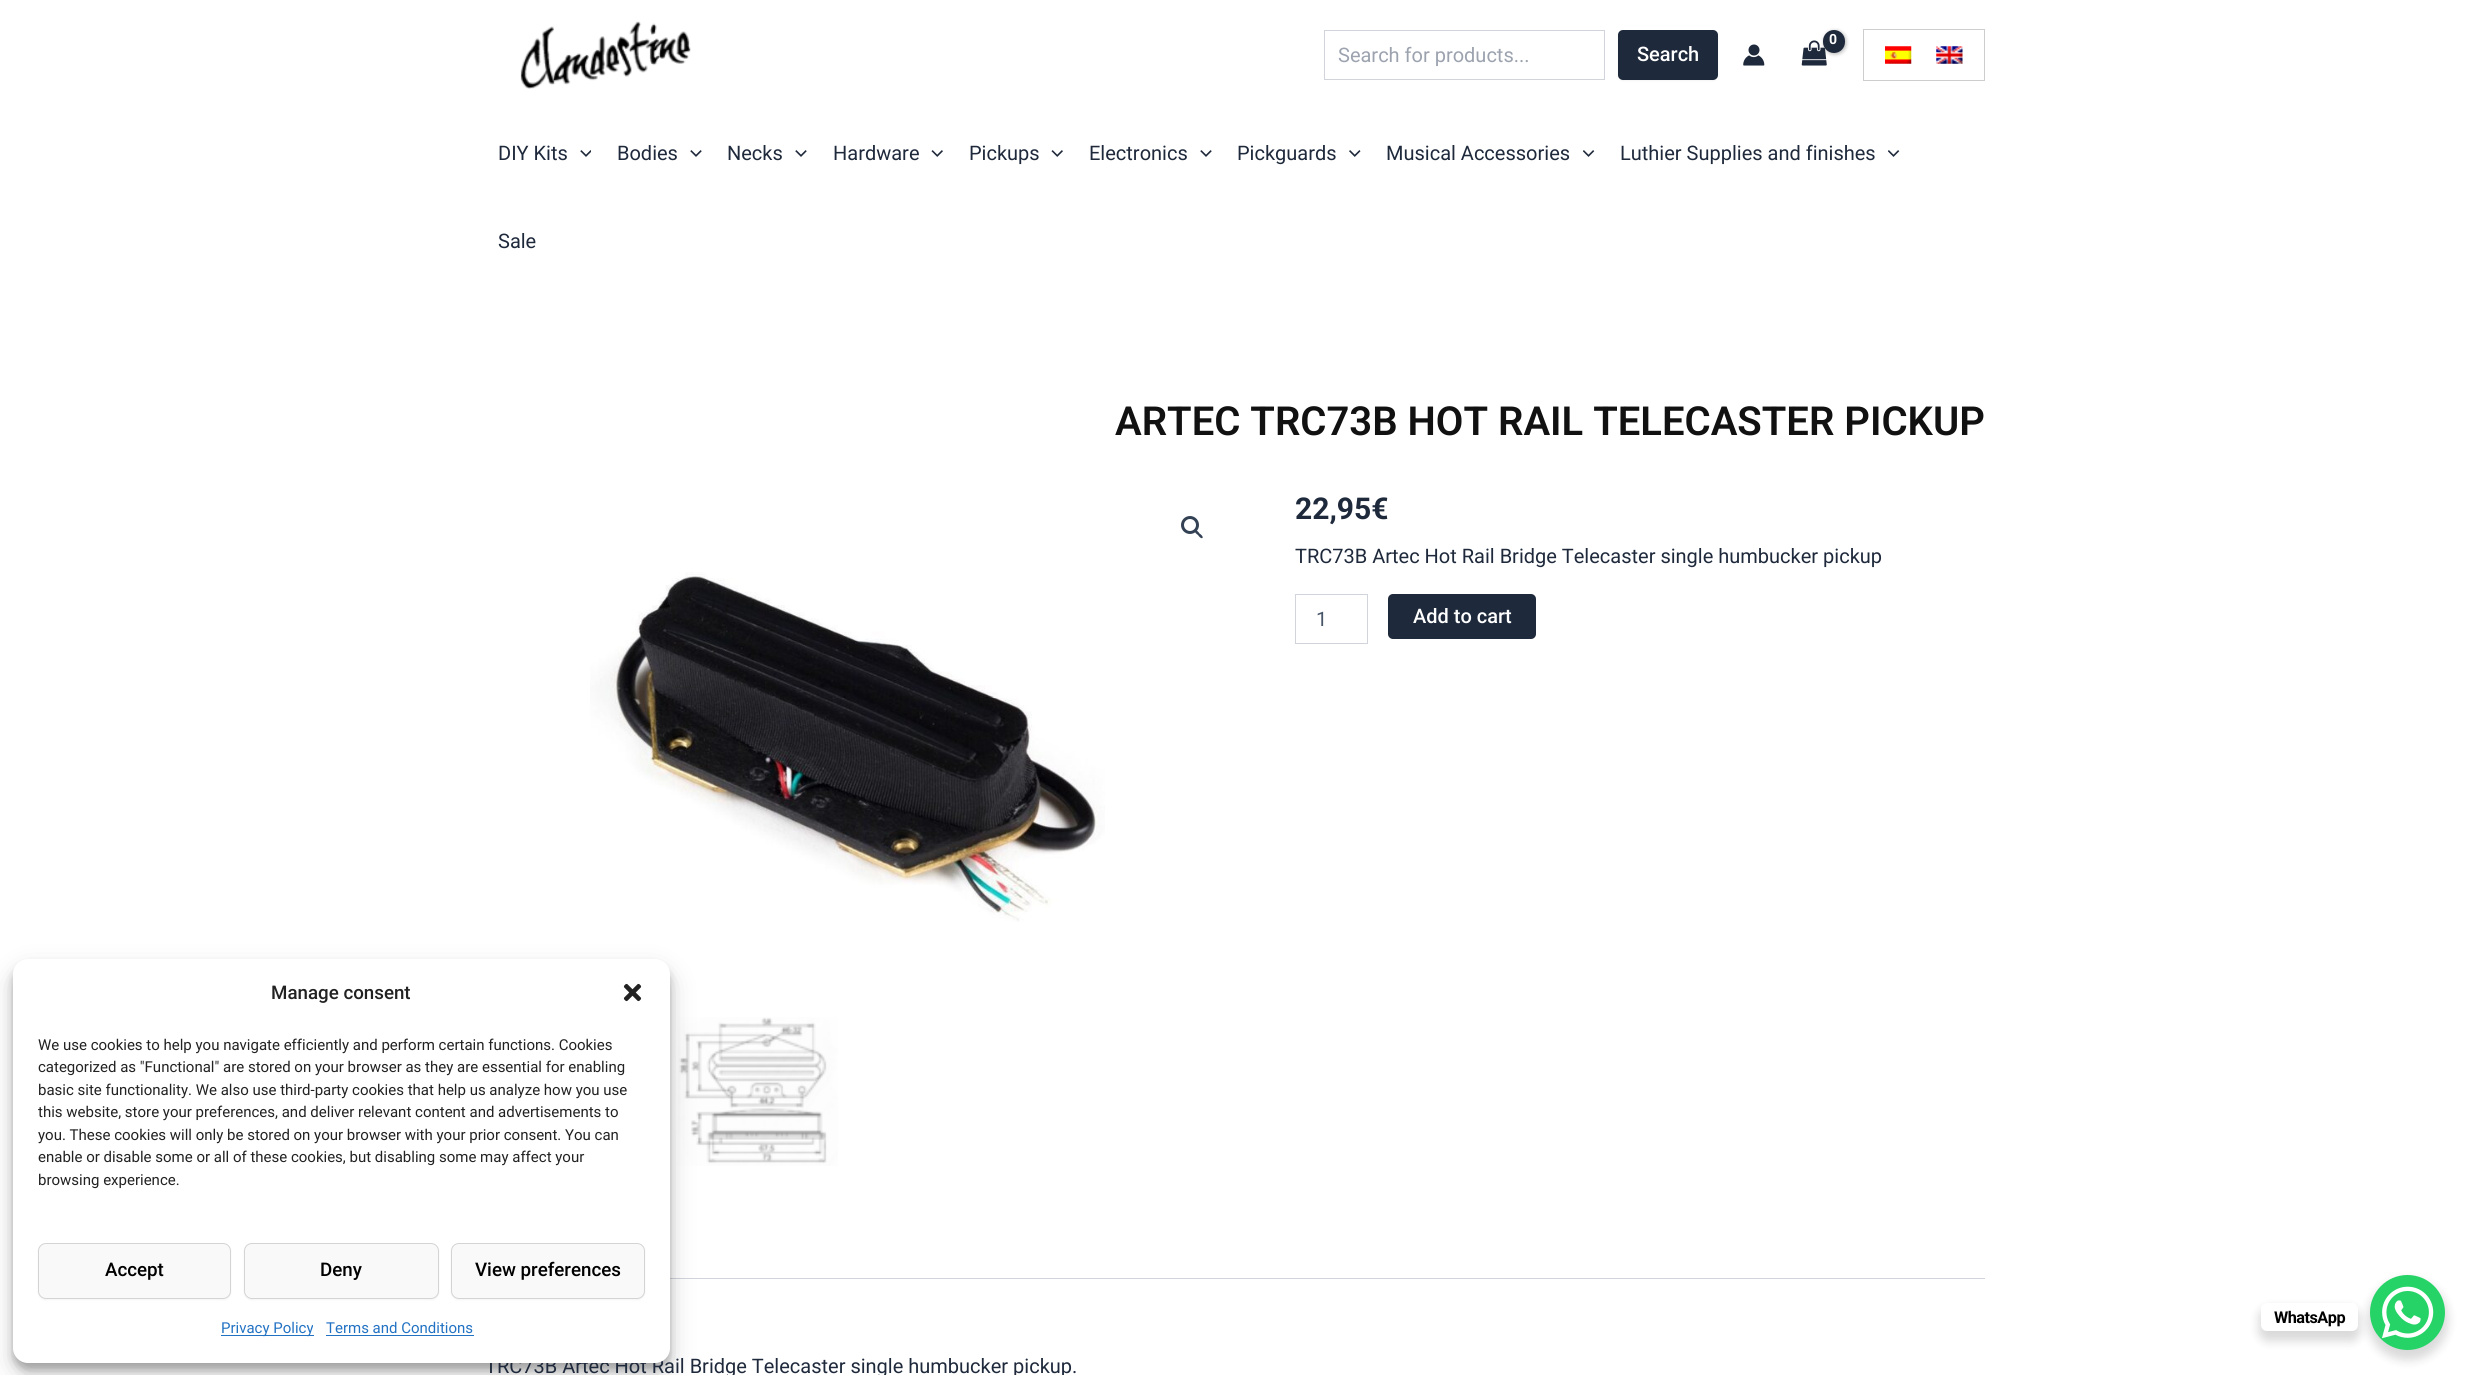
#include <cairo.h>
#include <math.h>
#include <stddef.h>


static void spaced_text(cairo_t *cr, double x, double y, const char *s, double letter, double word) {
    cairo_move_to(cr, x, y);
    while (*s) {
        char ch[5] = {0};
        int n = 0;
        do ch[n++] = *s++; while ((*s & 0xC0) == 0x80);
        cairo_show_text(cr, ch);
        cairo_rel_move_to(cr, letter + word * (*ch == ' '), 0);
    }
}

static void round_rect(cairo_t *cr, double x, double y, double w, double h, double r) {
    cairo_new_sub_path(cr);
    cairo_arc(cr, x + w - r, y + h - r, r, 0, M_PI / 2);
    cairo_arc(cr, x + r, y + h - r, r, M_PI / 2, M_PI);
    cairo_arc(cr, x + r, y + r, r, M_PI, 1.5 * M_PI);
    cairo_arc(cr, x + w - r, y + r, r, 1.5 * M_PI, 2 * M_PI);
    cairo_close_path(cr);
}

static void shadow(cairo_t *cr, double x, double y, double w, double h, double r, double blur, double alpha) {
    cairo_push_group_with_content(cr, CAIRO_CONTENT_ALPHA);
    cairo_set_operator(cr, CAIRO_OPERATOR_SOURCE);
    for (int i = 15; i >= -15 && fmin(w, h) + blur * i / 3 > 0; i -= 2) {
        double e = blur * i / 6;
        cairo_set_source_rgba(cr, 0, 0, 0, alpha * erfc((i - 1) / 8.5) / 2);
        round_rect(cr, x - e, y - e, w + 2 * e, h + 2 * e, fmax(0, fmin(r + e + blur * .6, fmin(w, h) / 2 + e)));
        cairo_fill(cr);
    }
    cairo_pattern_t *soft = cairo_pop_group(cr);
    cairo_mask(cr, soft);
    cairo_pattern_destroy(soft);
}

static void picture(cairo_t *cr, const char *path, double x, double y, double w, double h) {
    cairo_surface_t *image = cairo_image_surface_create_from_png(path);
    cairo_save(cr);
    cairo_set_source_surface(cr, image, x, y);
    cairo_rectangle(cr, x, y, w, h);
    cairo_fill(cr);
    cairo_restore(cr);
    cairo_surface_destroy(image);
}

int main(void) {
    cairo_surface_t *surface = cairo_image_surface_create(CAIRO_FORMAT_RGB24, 2470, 1375);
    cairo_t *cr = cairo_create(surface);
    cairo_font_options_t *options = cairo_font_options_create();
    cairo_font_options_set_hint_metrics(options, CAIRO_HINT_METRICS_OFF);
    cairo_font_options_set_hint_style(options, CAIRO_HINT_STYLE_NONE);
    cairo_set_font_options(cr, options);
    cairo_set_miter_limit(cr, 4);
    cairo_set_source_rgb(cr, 1, 1, 1);
    cairo_paint(cr);
    picture(cr, "img13.png", 678, 1017, 160, 149);
    cairo_set_source_rgb(cr, 0.82, 0.835, 0.859);
    cairo_rectangle(cr, 670, 1278, 1315, 1);
    cairo_fill(cr);
    cairo_set_source_rgb(cr, 0, 0, 0);
    shadow(cr, 13, 966, 657, 404, 15, 4, 0.23);
    shadow(cr, 13, 971, 657, 404, 15, 12.5, 0.19);
    cairo_select_font_face(cr, "Roboto", CAIRO_FONT_SLANT_NORMAL, CAIRO_FONT_WEIGHT_NORMAL);
    cairo_set_font_size(cr, 20);
    cairo_set_source_rgb(cr, 0.118, 0.161, 0.231);
    cairo_move_to(cr, 485, 1373);
    cairo_show_text(cr, "TRC73B Artec Hot Rail Bridge Telecaster single humbucker pickup.");
    cairo_set_source_rgb(cr, 1, 1, 1);
    round_rect(cr, 13, 959, 657, 404, 15);
    cairo_fill(cr);
    cairo_select_font_face(cr, "Roboto Medium", CAIRO_FONT_SLANT_NORMAL, CAIRO_FONT_WEIGHT_NORMAL);
    cairo_set_font_size(cr, 18.75);
    cairo_set_source_rgb(cr, 0.133, 0.133, 0.133);
    cairo_move_to(cr, 271, 999);
    cairo_show_text(cr, "Manage consent");
    picture(cr, "img1.png", 623, 983, 19, 19);
    cairo_select_font_face(cr, "Roboto", CAIRO_FONT_SLANT_NORMAL, CAIRO_FONT_WEIGHT_NORMAL);
    cairo_set_font_size(cr, 15);
    cairo_move_to(cr, 38, 1050);
    cairo_show_text(cr, "We use cookies to help you navigate efficiently and perform certain functions. Cookies");
    cairo_move_to(cr, 38, 1072);
    cairo_show_text(cr, "categorized as \"Functional\" are stored on your browser as they are essential for enabling");
    cairo_move_to(cr, 38, 1095);
    cairo_show_text(cr, "basic site functionality. We also use third-party cookies that help us analyze how you use");
    cairo_move_to(cr, 38, 1117);
    cairo_show_text(cr, "this website, store your preferences, and deliver relevant content and advertisements to");
    cairo_move_to(cr, 38, 1140);
    cairo_show_text(cr, "you. These cookies will only be stored on your browser with your prior consent. You can");
    cairo_move_to(cr, 38, 1162);
    cairo_show_text(cr, "enable or disable some or all of these cookies, but disabling some may affect your");
    cairo_move_to(cr, 38, 1185);
    cairo_show_text(cr, "browsing experience.");
    cairo_set_source_rgb(cr, 0, 0, 0);
    shadow(cr, 38, 1244, 193, 56, 8, 1, 0.05);
    cairo_set_source_rgb(cr, 0.976, 0.976, 0.976);
    round_rect(cr, 38.5, 1243.5, 192, 55, 7.5);
    cairo_fill_preserve(cr);
    cairo_set_source_rgb(cr, 0.831, 0.831, 0.831);
    cairo_set_line_width(cr, 1);
    cairo_stroke(cr);
    cairo_select_font_face(cr, "Roboto Medium", CAIRO_FONT_SLANT_NORMAL, CAIRO_FONT_WEIGHT_NORMAL);
    cairo_set_font_size(cr, 18.75);
    cairo_set_source_rgb(cr, 0, 0, 0);
    cairo_move_to(cr, 105, 1276);
    cairo_show_text(cr, "Accept");
    cairo_set_source_rgb(cr, 0, 0, 0);
    shadow(cr, 244, 1244, 195, 56, 8, 1, 0.05);
    cairo_set_source_rgb(cr, 0.976, 0.976, 0.976);
    round_rect(cr, 244.5, 1243.5, 194, 55, 7.5);
    cairo_fill_preserve(cr);
    cairo_set_source_rgb(cr, 0.831, 0.831, 0.831);
    cairo_stroke(cr);
    cairo_set_source_rgb(cr, 0, 0, 0);
    cairo_move_to(cr, 320, 1276);
    cairo_show_text(cr, "Deny");
    cairo_set_source_rgb(cr, 0, 0, 0);
    shadow(cr, 451, 1244, 194, 56, 8, 1, 0.05);
    cairo_set_source_rgb(cr, 0.976, 0.976, 0.976);
    round_rect(cr, 451.5, 1243.5, 193, 55, 7.5);
    cairo_fill_preserve(cr);
    cairo_set_source_rgb(cr, 0.831, 0.831, 0.831);
    cairo_stroke(cr);
    cairo_set_source_rgb(cr, 0, 0, 0);
    cairo_move_to(cr, 475, 1276);
    cairo_show_text(cr, "View preferences");
    cairo_set_source_rgb(cr, 0.133, 0.447, 0.765);
    cairo_rectangle(cr, 221, 1335, 93, 1);
    cairo_fill(cr);
    cairo_select_font_face(cr, "Roboto", CAIRO_FONT_SLANT_NORMAL, CAIRO_FONT_WEIGHT_NORMAL);
    cairo_set_font_size(cr, 15);
    cairo_move_to(cr, 221, 1333);
    cairo_show_text(cr, "Privacy Policy");
    cairo_move_to(cr, 326, 1333);
    cairo_show_text(cr, "Terms and Conditions");
    cairo_rectangle(cr, 326, 1335, 148, 1);
    cairo_fill(cr);
    picture(cr, "img2.png", 520, 21, 171, 68);
    picture(cr, "img3.png", 1801, 40, 26, 26);
    cairo_set_source_rgb(cr, 0, 0, 0);
    shadow(cr, 1824, 31, 22, 23, 11, 2, 0.3);
    cairo_set_source_rgb(cr, 0.118, 0.161, 0.231);
    round_rect(cr, 1823, 30, 22, 23, 11);
    cairo_fill(cr);
    cairo_select_font_face(cr, "Roboto", CAIRO_FONT_SLANT_NORMAL, CAIRO_FONT_WEIGHT_BOLD);
    cairo_set_font_size(cr, 14);
    cairo_set_source_rgb(cr, 1, 1, 1);
    spaced_text(cr, 1829, 44, "0", -1, 0);
    cairo_rectangle(cr, 1863.5, 29.5, 121, 51);
    cairo_set_source_rgb(cr, 0.804, 0.804, 0.804);
    cairo_stroke(cr);
    picture(cr, "img4.png", 1885, 46, 27, 18);
    picture(cr, "img5.png", 1936, 46, 27, 18);
    cairo_rectangle(cr, 1324.5, 30.5, 280, 49);
    cairo_set_source_rgb(cr, 0.82, 0.835, 0.859);
    cairo_stroke(cr);
    cairo_select_font_face(cr, "Roboto", CAIRO_FONT_SLANT_NORMAL, CAIRO_FONT_WEIGHT_NORMAL);
    cairo_set_font_size(cr, 20);
    cairo_set_source_rgb(cr, 0.612, 0.639, 0.686);
    cairo_move_to(cr, 1338, 62);
    cairo_show_text(cr, "Search for products...");
    cairo_set_source_rgb(cr, 0, 0, 0);
    shadow(cr, 1618, 31, 100, 50, 5, 1, 0.05);
    cairo_set_source_rgb(cr, 0.118, 0.161, 0.231);
    round_rect(cr, 1618, 30, 100, 50, 5);
    cairo_fill(cr);
    cairo_select_font_face(cr, "Roboto Medium", CAIRO_FONT_SLANT_NORMAL, CAIRO_FONT_WEIGHT_NORMAL);
    cairo_set_source_rgb(cr, 1, 1, 1);
    cairo_move_to(cr, 1637, 61);
    cairo_show_text(cr, "Search");
    picture(cr, "img6.png", 1743, 44, 22, 22);
    cairo_select_font_face(cr, "Roboto", CAIRO_FONT_SLANT_NORMAL, CAIRO_FONT_WEIGHT_NORMAL);
    cairo_set_source_rgb(cr, 0.118, 0.161, 0.231);
    cairo_move_to(cr, 498, 160);
    cairo_show_text(cr, "DIY Kits");
    picture(cr, "img7.png", 580, 150, 11, 7);
    cairo_move_to(cr, 617, 160);
    cairo_show_text(cr, "Bodies");
    picture(cr, "img8.png", 690, 150, 12, 7);
    cairo_move_to(cr, 727, 160);
    cairo_show_text(cr, "Necks");
    picture(cr, "img8.png", 795, 150, 12, 7);
    cairo_move_to(cr, 833, 160);
    cairo_show_text(cr, "Hardware");
    picture(cr, "img9.png", 931, 150, 12, 7);
    cairo_move_to(cr, 969, 160);
    cairo_show_text(cr, "Pickups");
    picture(cr, "img9.png", 1051, 150, 12, 7);
    cairo_move_to(cr, 1089, 160);
    cairo_show_text(cr, "Electronics");
    picture(cr, "img8.png", 1200, 150, 12, 7);
    cairo_move_to(cr, 1237, 160);
    cairo_show_text(cr, "Pickguards");
    picture(cr, "img10.png", 1349, 150, 12, 7);
    cairo_move_to(cr, 1386, 160);
    cairo_show_text(cr, "Musical Accessories");
    picture(cr, "img11.png", 1583, 150, 12, 7);
    cairo_move_to(cr, 1620, 160);
    cairo_show_text(cr, "Luthier Supplies and finishes");
    picture(cr, "img11.png", 1888, 150, 12, 7);
    cairo_move_to(cr, 498, 248);
    cairo_show_text(cr, "Sale");
    cairo_select_font_face(cr, "Roboto SemiBold", CAIRO_FONT_SLANT_NORMAL, CAIRO_FONT_WEIGHT_NORMAL);
    cairo_set_font_size(cr, 40);
    cairo_set_source_rgb(cr, 0.067, 0.067, 0.067);
    cairo_move_to(cr, 1115, 435);
    cairo_show_text(cr, "ARTEC TRC73B HOT RAIL TELECASTER PICKUP");
    cairo_new_path(cr);
    cairo_arc(cr, 1190, 525, 7.5, 0, 2 * M_PI);
    cairo_set_source_rgb(cr, 0.2, 0.255, 0.333);
    cairo_set_line_width(cr, 3);
    cairo_stroke(cr);
    cairo_new_path(cr);
    cairo_move_to(cr, 1195, 530.5);
    cairo_curve_to(cr, 1196.5, 529.5, 1199, 532.5, 1199.5, 533.5);
    cairo_curve_to(cr, 1200.5, 534, 1203.5, 536.5, 1202.5, 538);
    cairo_curve_to(cr, 1201, 539, 1198.5, 536, 1198, 535);
    cairo_curve_to(cr, 1197, 534.5, 1194, 532, 1195, 530.5);
    cairo_close_path(cr);
    cairo_fill(cr);
    picture(cr, "img12.png", 590, 572, 515, 350);
    cairo_select_font_face(cr, "Roboto", CAIRO_FONT_SLANT_NORMAL, CAIRO_FONT_WEIGHT_BOLD);
    cairo_set_font_size(cr, 30);
    cairo_set_source_rgb(cr, 0.118, 0.161, 0.231);
    cairo_move_to(cr, 1295, 519);
    cairo_show_text(cr, "22,95€");
    cairo_select_font_face(cr, "Roboto", CAIRO_FONT_SLANT_NORMAL, CAIRO_FONT_WEIGHT_NORMAL);
    cairo_set_font_size(cr, 20);
    cairo_move_to(cr, 1295, 563);
    cairo_show_text(cr, "TRC73B Artec Hot Rail Bridge Telecaster single humbucker pickup");
    cairo_rectangle(cr, 1295.5, 594.5, 72, 49);
    cairo_set_source_rgb(cr, 0.82, 0.835, 0.859);
    cairo_set_line_width(cr, 1);
    cairo_stroke(cr);
    cairo_set_source_rgb(cr, 0.278, 0.333, 0.412);
    cairo_move_to(cr, 1316, 626);
    cairo_show_text(cr, "1");
    cairo_set_source_rgb(cr, 0.118, 0.161, 0.231);
    round_rect(cr, 1388, 594, 148, 45, 5);
    cairo_fill(cr);
    cairo_select_font_face(cr, "Roboto Medium", CAIRO_FONT_SLANT_NORMAL, CAIRO_FONT_WEIGHT_NORMAL);
    cairo_set_source_rgb(cr, 1, 1, 1);
    cairo_move_to(cr, 1413, 623);
    cairo_show_text(cr, "Add to cart");
    cairo_set_source_rgb(cr, 0, 0, 0);
    shadow(cr, 2368, 1280, 80, 80, 40, 5, 0.15);
    cairo_set_source_rgb(cr, 0.145, 0.827, 0.4);
    cairo_arc(cr, 2407.5, 1312.5, 37.5, 0, 2 * M_PI);
    cairo_fill(cr);
    cairo_set_source_rgb(cr, 0, 0, 0);
    shadow(cr, 2259, 1308, 101, 33, 9, 5, 0.15);
    cairo_set_source_rgb(cr, 1, 1, 1);
    round_rect(cr, 2261, 1303, 97, 28, 6);
    cairo_fill(cr);
    cairo_select_font_face(cr, "Roboto", CAIRO_FONT_SLANT_NORMAL, CAIRO_FONT_WEIGHT_BOLD);
    cairo_set_font_size(cr, 16.25);
    cairo_set_source_rgb(cr, 0, 0, 0);
    spaced_text(cr, 2274, 1323, "WhatsApp", -0.5, 0);
    picture(cr, "img14.png", 2382, 1286, 52, 53);
    cairo_surface_write_to_png(surface, "page.png");
    cairo_font_options_destroy(options);
    cairo_destroy(cr);
    cairo_surface_destroy(surface);
    return 0;
}
